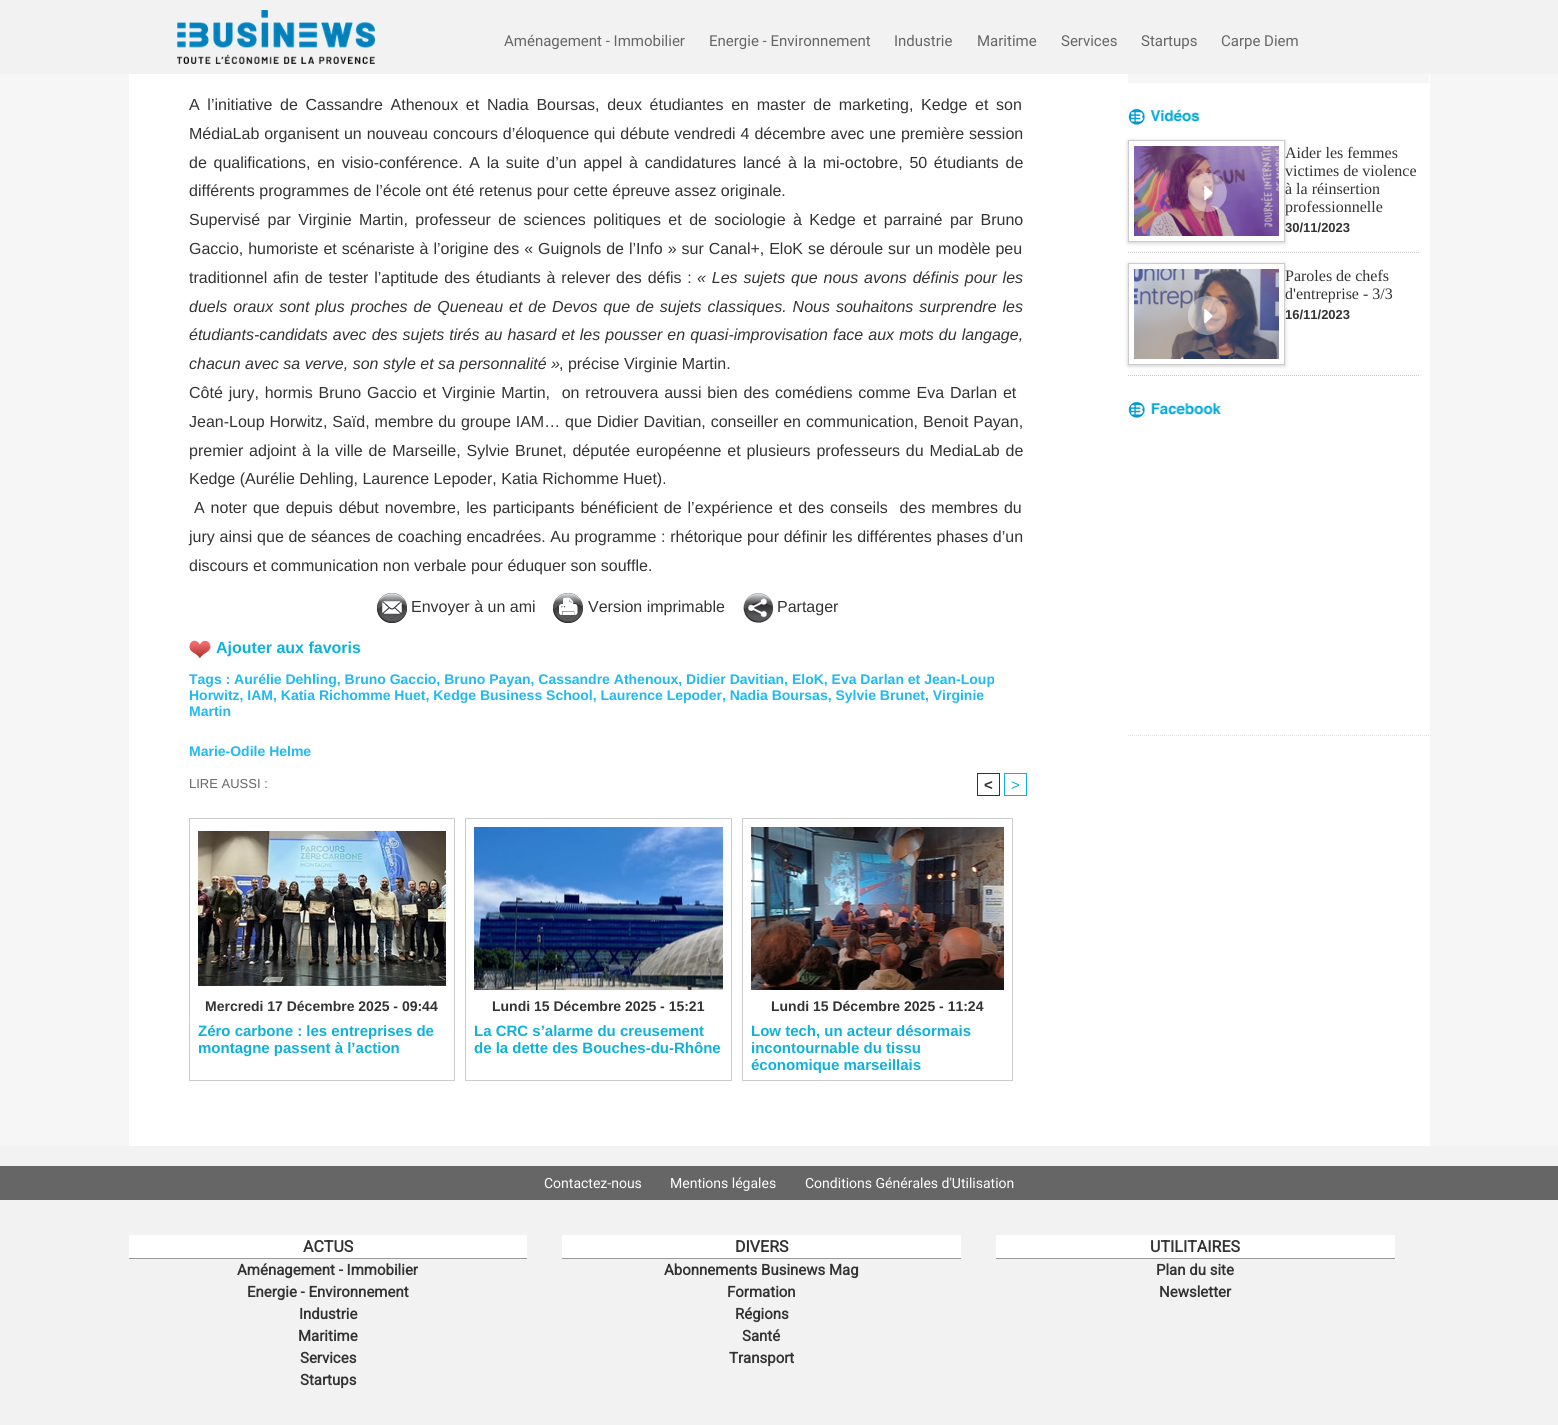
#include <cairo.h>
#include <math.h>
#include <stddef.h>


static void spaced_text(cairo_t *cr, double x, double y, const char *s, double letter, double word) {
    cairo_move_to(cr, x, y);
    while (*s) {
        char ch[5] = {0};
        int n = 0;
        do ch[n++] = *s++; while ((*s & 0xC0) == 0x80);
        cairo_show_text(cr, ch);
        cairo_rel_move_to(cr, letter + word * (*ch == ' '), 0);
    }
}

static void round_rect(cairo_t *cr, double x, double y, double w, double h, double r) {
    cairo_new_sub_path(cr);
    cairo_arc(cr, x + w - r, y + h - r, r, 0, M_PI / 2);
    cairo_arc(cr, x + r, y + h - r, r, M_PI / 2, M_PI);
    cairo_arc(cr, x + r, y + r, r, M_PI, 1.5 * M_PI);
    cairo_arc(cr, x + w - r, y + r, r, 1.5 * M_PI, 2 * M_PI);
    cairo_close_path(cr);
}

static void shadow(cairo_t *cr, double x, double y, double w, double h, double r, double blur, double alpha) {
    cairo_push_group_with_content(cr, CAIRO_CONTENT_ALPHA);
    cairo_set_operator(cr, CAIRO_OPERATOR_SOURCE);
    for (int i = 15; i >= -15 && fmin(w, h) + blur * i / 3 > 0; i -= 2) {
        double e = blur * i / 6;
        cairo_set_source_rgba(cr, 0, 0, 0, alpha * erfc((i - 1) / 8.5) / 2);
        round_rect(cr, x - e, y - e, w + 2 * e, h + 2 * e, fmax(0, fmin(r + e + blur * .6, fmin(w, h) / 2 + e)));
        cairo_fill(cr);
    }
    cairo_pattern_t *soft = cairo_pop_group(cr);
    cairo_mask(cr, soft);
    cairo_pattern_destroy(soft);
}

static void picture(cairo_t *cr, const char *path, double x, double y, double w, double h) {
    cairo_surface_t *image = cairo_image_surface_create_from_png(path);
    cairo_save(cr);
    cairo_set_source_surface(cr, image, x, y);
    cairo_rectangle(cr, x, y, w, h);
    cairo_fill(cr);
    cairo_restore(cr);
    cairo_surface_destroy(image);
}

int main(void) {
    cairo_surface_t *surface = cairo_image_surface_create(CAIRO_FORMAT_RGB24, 1558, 1425);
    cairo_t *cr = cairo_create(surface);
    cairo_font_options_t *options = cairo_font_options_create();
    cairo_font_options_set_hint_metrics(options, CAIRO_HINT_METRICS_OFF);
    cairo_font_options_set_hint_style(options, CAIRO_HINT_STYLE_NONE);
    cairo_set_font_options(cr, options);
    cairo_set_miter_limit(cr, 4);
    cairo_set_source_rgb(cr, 0.961, 0.961, 0.961);
    cairo_paint(cr);
    cairo_set_source_rgb(cr, 0.949, 0.949, 0.949);
    cairo_rectangle(cr, 0, 0, 1558, 74);
    cairo_fill(cr);
    picture(cr, "img1.png", 177, 10, 198, 54);
    cairo_select_font_face(cr, "Roboto", CAIRO_FONT_SLANT_NORMAL, CAIRO_FONT_WEIGHT_NORMAL);
    cairo_set_font_size(cr, 15);
    cairo_set_source_rgb(cr, 0.4, 0.4, 0.4);
    cairo_move_to(cr, 504, 46);
    cairo_show_text(cr, "Aménagement - Immobilier");
    cairo_move_to(cr, 709, 46);
    cairo_show_text(cr, "Energie - Environnement");
    cairo_move_to(cr, 894, 46);
    cairo_show_text(cr, "Industrie");
    cairo_move_to(cr, 977, 46);
    cairo_show_text(cr, "Maritime");
    cairo_move_to(cr, 1061, 46);
    cairo_show_text(cr, "Services");
    cairo_move_to(cr, 1141, 46);
    cairo_show_text(cr, "Startups");
    cairo_move_to(cr, 1221, 46);
    cairo_show_text(cr, "Carpe Diem");
    cairo_set_source_rgb(cr, 1, 1, 1);
    cairo_rectangle(cr, 129, 74, 1301, 1072);
    cairo_fill(cr);
    cairo_select_font_face(cr, "Liberation Sans", CAIRO_FONT_SLANT_NORMAL, CAIRO_FONT_WEIGHT_NORMAL);
    cairo_set_font_size(cr, 16);
    cairo_set_source_rgb(cr, 0.2, 0.2, 0.2);
    spaced_text(cr, 189, 110, "A l’initiative de Cassandre Athenoux et Nadia Boursas, deux étudiantes en master de marketing, Kedge et son", 0, 3.25);
    spaced_text(cr, 189, 139, "MédiaLab organisent un nouveau concours d’éloquence qui débute vendredi 4 décembre avec une première session", 0, 0.5);
    spaced_text(cr, 189, 168, "de qualifications, en visio-conférence. A la suite d’un appel à candidatures lancé à la mi-octobre, 50 étudiants de", 0, 2.25);
    cairo_move_to(cr, 189, 196);
    cairo_show_text(cr, "différents programmes de l’école ont été retenus pour cette épreuve assez originale.");
    spaced_text(cr, 189, 225, "Supervisé par Virginie Martin, professeur de sciences politiques et de sociologie à Kedge et parrainé par Bruno", 0, 3);
    spaced_text(cr, 189, 254, "Gaccio, humoriste et scénariste à l’origine des « Guignols de l’Info » sur Canal+, EloK se déroule sur un modèle peu", 0, 0.5);
    spaced_text(cr, 189, 283, "traditionnel afin de tester l’aptitude des étudiants à relever des défis :", 0, 1.4);
    cairo_select_font_face(cr, "Liberation Sans", CAIRO_FONT_SLANT_ITALIC, CAIRO_FONT_WEIGHT_NORMAL);
    spaced_text(cr, 697, 283, "« Les sujets que nous avons définis pour les", 0, 1.4);
    spaced_text(cr, 189, 312, "duels oraux sont plus proches de Queneau et de Devos que de sujets classiques. Nous souhaitons surprendre les", 0, 1.5);
    spaced_text(cr, 189, 340, "étudiants-candidats avec des sujets tirés au hasard et les pousser en quasi-improvisation face aux mots du langage,", 0, 0.6);
    cairo_move_to(cr, 189, 369);
    cairo_show_text(cr, "chacun avec sa verve, son style et sa personnalité »");
    cairo_select_font_face(cr, "Liberation Sans", CAIRO_FONT_SLANT_NORMAL, CAIRO_FONT_WEIGHT_NORMAL);
    cairo_move_to(cr, 559, 369);
    cairo_show_text(cr, ", précise Virginie Martin.");
    spaced_text(cr, 189, 398, "Côté jury, hormis Bruno Gaccio et Virginie Martin,  on retrouvera aussi bien des comédiens comme Eva Darlan et", 0, 1.4);
    spaced_text(cr, 189, 427, "Jean-Loup Horwitz, Saïd, membre du groupe IAM… que Didier Davitian, conseiller en communication, Benoit Payan,", 0, 0.5);
    spaced_text(cr, 189, 456, "premier adjoint à la ville de Marseille, Sylvie Brunet, députée européenne et plusieurs professeurs du MediaLab de", 0, 1.4);
    cairo_move_to(cr, 189, 484);
    cairo_show_text(cr, "Kedge (Aurélie Dehling, Laurence Lepoder, Katia Richomme Huet).");
    spaced_text(cr, 194, 513, "A noter que depuis début novembre, les participants bénéficient de l’expérience et des conseils  des membres du", 0, 1.5);
    spaced_text(cr, 189, 542, "jury ainsi que de séances de coaching encadrées. Au programme : rhétorique pour définir les différentes phases d’un", 0, 0.25);
    cairo_move_to(cr, 189, 571);
    cairo_show_text(cr, "discours et communication non verbale pour éduquer son souffle.");
    picture(cr, "img2.png", 377, 593, 30, 30);
    cairo_move_to(cr, 411, 612);
    cairo_show_text(cr, "Envoyer à un ami");
    picture(cr, "img3.png", 553, 593, 30, 30);
    cairo_move_to(cr, 588, 612);
    cairo_show_text(cr, "Version imprimable");
    picture(cr, "img4.png", 743, 593, 30, 30);
    cairo_move_to(cr, 777, 612);
    cairo_show_text(cr, "Partager");
    picture(cr, "img5.png", 189, 640, 22, 19);
    cairo_select_font_face(cr, "Liberation Sans", CAIRO_FONT_SLANT_NORMAL, CAIRO_FONT_WEIGHT_BOLD);
    cairo_set_source_rgb(cr, 0.059, 0.694, 0.851);
    cairo_move_to(cr, 216, 653);
    cairo_show_text(cr, "Ajouter aux favoris");
    cairo_set_font_size(cr, 14);
    cairo_set_source_rgb(cr, 0.125, 0.725, 0.941);
    cairo_move_to(cr, 189, 684);
    cairo_show_text(cr, "Tags : Aurélie Dehling, Bruno Gaccio, Bruno Payan, Cassandre Athenoux, Didier Davitian, EloK, Eva Darlan et Jean-Loup");
    cairo_move_to(cr, 189, 700);
    cairo_show_text(cr, "Horwitz, IAM, Katia Richomme Huet, Kedge Business School, Laurence Lepoder, Nadia Boursas, Sylvie Brunet, Virginie");
    cairo_move_to(cr, 189, 716);
    cairo_show_text(cr, "Martin");
    cairo_move_to(cr, 189, 756);
    cairo_show_text(cr, "Marie-Odile Helme");
    cairo_select_font_face(cr, "Liberation Sans", CAIRO_FONT_SLANT_NORMAL, CAIRO_FONT_WEIGHT_NORMAL);
    cairo_set_font_size(cr, 13);
    cairo_set_source_rgb(cr, 0.4, 0.4, 0.4);
    cairo_move_to(cr, 189, 788);
    cairo_show_text(cr, "LIRE AUSSI :");
    cairo_rectangle(cr, 977.5, 773.5, 22, 22);
    cairo_set_source_rgb(cr, 0.2, 0.2, 0.2);
    cairo_set_line_width(cr, 1);
    cairo_stroke(cr);
    cairo_select_font_face(cr, "Liberation Sans", CAIRO_FONT_SLANT_NORMAL, CAIRO_FONT_WEIGHT_BOLD);
    cairo_set_font_size(cr, 15);
    cairo_move_to(cr, 984, 790);
    cairo_show_text(cr, "<");
    cairo_rectangle(cr, 1004.5, 773.5, 22, 22);
    cairo_set_source_rgb(cr, 0.059, 0.694, 0.851);
    cairo_stroke(cr);
    cairo_select_font_face(cr, "Liberation Sans", CAIRO_FONT_SLANT_NORMAL, CAIRO_FONT_WEIGHT_NORMAL);
    cairo_move_to(cr, 1011, 790);
    cairo_show_text(cr, ">");
    cairo_rectangle(cr, 189.5, 818.5, 265, 262);
    cairo_set_source_rgb(cr, 0.8, 0.8, 0.8);
    cairo_stroke(cr);
    picture(cr, "img6.png", 198, 831, 248, 155);
    cairo_select_font_face(cr, "Liberation Sans", CAIRO_FONT_SLANT_NORMAL, CAIRO_FONT_WEIGHT_BOLD);
    cairo_set_font_size(cr, 14);
    cairo_set_source_rgb(cr, 0.2, 0.2, 0.2);
    cairo_move_to(cr, 205, 1011);
    cairo_show_text(cr, "Mercredi 17 Décembre 2025 - 09:44");
    cairo_set_font_size(cr, 15);
    cairo_set_source_rgb(cr, 0.059, 0.694, 0.851);
    cairo_move_to(cr, 198, 1036);
    cairo_show_text(cr, "Zéro carbone : les entreprises de");
    cairo_move_to(cr, 198, 1053);
    cairo_show_text(cr, "montagne passent à l’action");
    cairo_rectangle(cr, 465.5, 818.5, 266, 262);
    cairo_set_source_rgb(cr, 0.8, 0.8, 0.8);
    cairo_stroke(cr);
    picture(cr, "img7.png", 474, 827, 249, 163);
    cairo_set_font_size(cr, 14);
    cairo_set_source_rgb(cr, 0.2, 0.2, 0.2);
    cairo_move_to(cr, 492, 1011);
    cairo_show_text(cr, "Lundi 15 Décembre 2025 - 15:21");
    cairo_set_font_size(cr, 15);
    cairo_set_source_rgb(cr, 0.059, 0.694, 0.851);
    cairo_move_to(cr, 474, 1036);
    cairo_show_text(cr, "La CRC s’alarme du creusement");
    cairo_move_to(cr, 474, 1053);
    cairo_show_text(cr, "de la dette des Bouches-du-Rhône");
    cairo_rectangle(cr, 742.5, 818.5, 270, 262);
    cairo_set_source_rgb(cr, 0.8, 0.8, 0.8);
    cairo_stroke(cr);
    picture(cr, "img8.png", 751, 827, 253, 163);
    cairo_set_font_size(cr, 14);
    cairo_set_source_rgb(cr, 0.2, 0.2, 0.2);
    cairo_move_to(cr, 771, 1011);
    cairo_show_text(cr, "Lundi 15 Décembre 2025 - 11:24");
    cairo_set_font_size(cr, 15);
    cairo_set_source_rgb(cr, 0.059, 0.694, 0.851);
    cairo_move_to(cr, 751, 1036);
    cairo_show_text(cr, "Low tech, un acteur désormais");
    cairo_move_to(cr, 751, 1053);
    cairo_show_text(cr, "incontournable du tissu");
    cairo_move_to(cr, 751, 1070);
    cairo_show_text(cr, "économique marseillais");
    cairo_set_source_rgb(cr, 0.961, 0.961, 0.961);
    cairo_rectangle(cr, 1128, 74, 301, 9);
    cairo_fill(cr);
    picture(cr, "img9.png", 1128, 108, 72, 17);
    cairo_new_path(cr);
    cairo_move_to(cr, 1128, 252.5);
    cairo_line_to(cr, 1420, 252.5);
    cairo_set_source_rgb(cr, 0.8, 0.8, 0.8);
    cairo_set_dash(cr, (double[]){1, 1}, 2, 0);
    cairo_stroke(cr);
    cairo_save(cr);
    cairo_set_fill_rule(cr, CAIRO_FILL_RULE_EVEN_ODD);
    cairo_new_path(cr);
    cairo_move_to(cr, 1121, 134);
    cairo_line_to(cr, 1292, 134);
    cairo_line_to(cr, 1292, 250);
    cairo_line_to(cr, 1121, 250);
    cairo_close_path(cr);
    cairo_move_to(cr, 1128, 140);
    cairo_line_to(cr, 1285, 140);
    cairo_line_to(cr, 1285, 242);
    cairo_line_to(cr, 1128, 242);
    cairo_close_path(cr);
    cairo_clip(cr);
    cairo_set_source_rgb(cr, 0.8, 0.8, 0.8);
    shadow(cr, 1128, 141, 157, 102, 0, 2, 1);
    cairo_restore(cr);
    cairo_rectangle(cr, 1128.5, 140.5, 156, 101);
    cairo_set_dash(cr, NULL, 0, 0);
    cairo_stroke(cr);
    picture(cr, "img10.png", 1134, 146, 145, 90);
    picture(cr, "img11.png", 1188, 173, 39, 39);
    cairo_select_font_face(cr, "Liberation Serif", CAIRO_FONT_SLANT_NORMAL, CAIRO_FONT_WEIGHT_NORMAL);
    cairo_set_font_size(cr, 16);
    cairo_set_source_rgb(cr, 0.2, 0.2, 0.2);
    cairo_move_to(cr, 1285, 158);
    cairo_show_text(cr, "Aider les femmes");
    cairo_move_to(cr, 1285, 176);
    cairo_show_text(cr, "victimes de violence");
    cairo_move_to(cr, 1285, 194);
    cairo_show_text(cr, "à la réinsertion");
    cairo_move_to(cr, 1285, 212);
    cairo_show_text(cr, "professionnelle");
    cairo_select_font_face(cr, "Liberation Sans", CAIRO_FONT_SLANT_NORMAL, CAIRO_FONT_WEIGHT_BOLD);
    cairo_set_font_size(cr, 13);
    cairo_move_to(cr, 1285, 232);
    cairo_show_text(cr, "30/11/2023");
    cairo_new_path(cr);
    cairo_move_to(cr, 1128, 375.5);
    cairo_line_to(cr, 1420, 375.5);
    cairo_set_source_rgb(cr, 0.8, 0.8, 0.8);
    cairo_set_dash(cr, (double[]){1, 1}, 2, 0);
    cairo_stroke(cr);
    cairo_save(cr);
    cairo_set_fill_rule(cr, CAIRO_FILL_RULE_EVEN_ODD);
    cairo_new_path(cr);
    cairo_move_to(cr, 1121, 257);
    cairo_line_to(cr, 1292, 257);
    cairo_line_to(cr, 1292, 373);
    cairo_line_to(cr, 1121, 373);
    cairo_close_path(cr);
    cairo_move_to(cr, 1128, 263);
    cairo_line_to(cr, 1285, 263);
    cairo_line_to(cr, 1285, 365);
    cairo_line_to(cr, 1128, 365);
    cairo_close_path(cr);
    cairo_clip(cr);
    cairo_set_source_rgb(cr, 0.8, 0.8, 0.8);
    shadow(cr, 1128, 264, 157, 102, 0, 2, 1);
    cairo_restore(cr);
    cairo_rectangle(cr, 1128.5, 263.5, 156, 101);
    cairo_set_dash(cr, NULL, 0, 0);
    cairo_stroke(cr);
    picture(cr, "img12.png", 1134, 269, 145, 90);
    picture(cr, "img13.png", 1188, 296, 39, 39);
    cairo_select_font_face(cr, "Liberation Serif", CAIRO_FONT_SLANT_NORMAL, CAIRO_FONT_WEIGHT_NORMAL);
    cairo_set_font_size(cr, 16);
    cairo_set_source_rgb(cr, 0.2, 0.2, 0.2);
    cairo_move_to(cr, 1285, 281);
    cairo_show_text(cr, "Paroles de chefs");
    cairo_move_to(cr, 1285, 299);
    cairo_show_text(cr, "d'entreprise - 3/3");
    cairo_select_font_face(cr, "Liberation Sans", CAIRO_FONT_SLANT_NORMAL, CAIRO_FONT_WEIGHT_BOLD);
    cairo_set_font_size(cr, 13);
    cairo_move_to(cr, 1285, 319);
    cairo_show_text(cr, "16/11/2023");
    picture(cr, "img14.png", 1128, 401, 93, 17);
    cairo_new_path(cr);
    cairo_move_to(cr, 1128, 735.5);
    cairo_line_to(cr, 1430, 735.5);
    cairo_set_source_rgb(cr, 0.882, 0.882, 0.882);
    cairo_set_dash(cr, (double[]){1, 1}, 2, 0);
    cairo_stroke(cr);
    cairo_set_source_rgb(cr, 0.949, 0.949, 0.949);
    cairo_rectangle(cr, 0, 1146, 1558, 279);
    cairo_fill(cr);
    cairo_set_source_rgb(cr, 0.4, 0.4, 0.4);
    cairo_rectangle(cr, 0, 1166, 1558, 34);
    cairo_fill(cr);
    cairo_select_font_face(cr, "Roboto", CAIRO_FONT_SLANT_NORMAL, CAIRO_FONT_WEIGHT_NORMAL);
    cairo_set_font_size(cr, 14);
    cairo_set_source_rgb(cr, 1, 1, 1);
    cairo_move_to(cr, 544, 1188);
    cairo_show_text(cr, "Contactez-nous");
    cairo_move_to(cr, 670, 1188);
    cairo_show_text(cr, "Mentions légales");
    cairo_move_to(cr, 805, 1188);
    cairo_show_text(cr, "Conditions Générales d'Utilisation");
    cairo_rectangle(cr, 129, 1235, 398, 23);
    cairo_fill(cr);
    cairo_set_source_rgb(cr, 0.6, 0.6, 0.6);
    cairo_rectangle(cr, 129, 1258, 398, 1);
    cairo_fill(cr);
    cairo_select_font_face(cr, "Roboto", CAIRO_FONT_SLANT_NORMAL, CAIRO_FONT_WEIGHT_BOLD);
    cairo_set_font_size(cr, 16);
    cairo_set_source_rgb(cr, 0.2, 0.2, 0.2);
    cairo_move_to(cr, 303, 1252);
    cairo_show_text(cr, "ACTUS");
    cairo_set_font_size(cr, 15);
    cairo_move_to(cr, 237, 1275);
    cairo_show_text(cr, "Aménagement - Immobilier");
    cairo_move_to(cr, 247, 1297);
    cairo_show_text(cr, "Energie - Environnement");
    cairo_move_to(cr, 299, 1319);
    cairo_show_text(cr, "Industrie");
    cairo_move_to(cr, 298, 1341);
    cairo_show_text(cr, "Maritime");
    cairo_move_to(cr, 300, 1363);
    cairo_show_text(cr, "Services");
    cairo_move_to(cr, 300, 1385);
    cairo_show_text(cr, "Startups");
    cairo_set_source_rgb(cr, 1, 1, 1);
    cairo_rectangle(cr, 562, 1235, 399, 23);
    cairo_fill(cr);
    cairo_set_source_rgb(cr, 0.6, 0.6, 0.6);
    cairo_rectangle(cr, 562, 1258, 399, 1);
    cairo_fill(cr);
    cairo_set_font_size(cr, 16);
    cairo_set_source_rgb(cr, 0.2, 0.2, 0.2);
    cairo_move_to(cr, 735, 1252);
    cairo_show_text(cr, "DIVERS");
    cairo_set_font_size(cr, 15);
    cairo_move_to(cr, 664, 1275);
    cairo_show_text(cr, "Abonnements Businews Mag");
    cairo_move_to(cr, 727, 1297);
    cairo_show_text(cr, "Formation");
    cairo_move_to(cr, 735, 1319);
    cairo_show_text(cr, "Régions");
    cairo_move_to(cr, 742, 1341);
    cairo_show_text(cr, "Santé");
    cairo_move_to(cr, 729, 1363);
    cairo_show_text(cr, "Transport");
    cairo_set_source_rgb(cr, 1, 1, 1);
    cairo_rectangle(cr, 996, 1235, 399, 23);
    cairo_fill(cr);
    cairo_set_source_rgb(cr, 0.6, 0.6, 0.6);
    cairo_rectangle(cr, 996, 1258, 399, 1);
    cairo_fill(cr);
    cairo_set_font_size(cr, 16);
    cairo_set_source_rgb(cr, 0.2, 0.2, 0.2);
    cairo_move_to(cr, 1150, 1252);
    cairo_show_text(cr, "UTILITAIRES");
    cairo_set_font_size(cr, 15);
    cairo_move_to(cr, 1156, 1275);
    cairo_show_text(cr, "Plan du site");
    cairo_move_to(cr, 1159, 1297);
    cairo_show_text(cr, "Newsletter");
    cairo_surface_write_to_png(surface, "page.png");
    cairo_font_options_destroy(options);
    cairo_destroy(cr);
    cairo_surface_destroy(surface);
    return 0;
}
